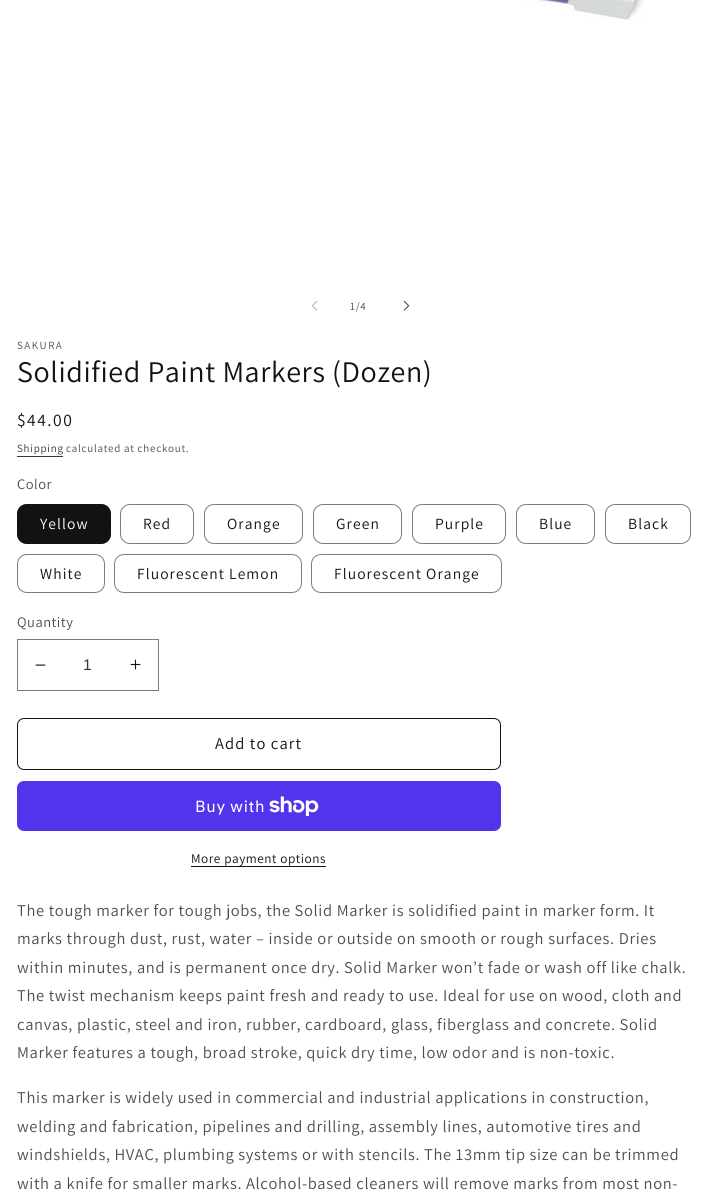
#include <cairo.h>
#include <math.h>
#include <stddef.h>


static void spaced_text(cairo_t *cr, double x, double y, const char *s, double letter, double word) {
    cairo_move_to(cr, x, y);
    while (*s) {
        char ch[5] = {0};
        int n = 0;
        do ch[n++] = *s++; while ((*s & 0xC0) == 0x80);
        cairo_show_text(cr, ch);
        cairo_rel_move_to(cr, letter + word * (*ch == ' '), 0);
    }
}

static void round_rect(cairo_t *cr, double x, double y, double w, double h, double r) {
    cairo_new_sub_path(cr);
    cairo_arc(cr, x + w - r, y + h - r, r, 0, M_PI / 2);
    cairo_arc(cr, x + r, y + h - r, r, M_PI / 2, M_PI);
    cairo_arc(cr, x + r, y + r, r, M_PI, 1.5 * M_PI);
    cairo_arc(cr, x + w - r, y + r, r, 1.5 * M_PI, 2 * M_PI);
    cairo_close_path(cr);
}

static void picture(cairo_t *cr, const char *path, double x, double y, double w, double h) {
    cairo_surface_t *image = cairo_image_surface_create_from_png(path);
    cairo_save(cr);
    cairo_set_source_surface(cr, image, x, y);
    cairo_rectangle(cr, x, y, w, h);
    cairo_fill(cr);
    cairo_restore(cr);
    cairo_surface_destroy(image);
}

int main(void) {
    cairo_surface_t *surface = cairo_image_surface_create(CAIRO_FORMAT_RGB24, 721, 1198);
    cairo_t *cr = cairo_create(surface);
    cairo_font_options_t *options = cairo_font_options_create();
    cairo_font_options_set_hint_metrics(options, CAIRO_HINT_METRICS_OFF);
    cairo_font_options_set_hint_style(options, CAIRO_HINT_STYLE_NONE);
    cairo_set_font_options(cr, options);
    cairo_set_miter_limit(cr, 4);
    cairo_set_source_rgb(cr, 1, 1, 1);
    cairo_paint(cr);
    picture(cr, "img1.png", 519, 0, 125, 20);
    picture(cr, "img2.png", 311, 300, 7, 11);
    cairo_select_font_face(cr, "Assistant", CAIRO_FONT_SLANT_NORMAL, CAIRO_FONT_WEIGHT_NORMAL);
    cairo_set_font_size(cr, 11);
    cairo_set_source_rgb(cr, 0.302, 0.302, 0.302);
    spaced_text(cr, 350, 310, "1/4", 0.75, 0);
    picture(cr, "img3.png", 403, 300, 7, 11);
    spaced_text(cr, 17, 349, "SAKURA", 1.5, 0);
    cairo_set_font_size(cr, 30);
    cairo_set_source_rgb(cr, 0.071, 0.071, 0.071);
    spaced_text(cr, 17, 382, "Solidified Paint Markers (Dozen)", 0.6, 0);
    cairo_set_font_size(cr, 17.5);
    spaced_text(cr, 17, 426, "$44.00", 1.5, 0);
    cairo_set_font_size(cr, 11);
    cairo_set_source_rgb(cr, 0.212, 0.212, 0.212);
    spaced_text(cr, 17, 452, "Shipping", 0.75, 0);
    cairo_rectangle(cr, 17, 456, 46, 1);
    cairo_fill(cr);
    cairo_set_source_rgb(cr, 0.302, 0.302, 0.302);
    spaced_text(cr, 66, 452, "calculated at checkout.", 0.75, 0);
    cairo_set_font_size(cr, 14.5);
    spaced_text(cr, 17, 489, "Color", 0.5, 0);
    cairo_set_source_rgb(cr, 0.071, 0.071, 0.071);
    round_rect(cr, 17, 504, 94, 40, 10);
    cairo_fill(cr);
    round_rect(cr, 17.5, 504.5, 93, 39, 9.5);
    cairo_set_source_rgba(cr, 0.071, 0.071, 0.071, 0.55);
    cairo_set_line_width(cr, 1);
    cairo_stroke(cr);
    cairo_set_font_size(cr, 15.5);
    cairo_set_source_rgb(cr, 1, 1, 1);
    spaced_text(cr, 40, 529, "Yellow", 1.1, 0);
    round_rect(cr, 120.5, 504.5, 73, 39, 9.5);
    cairo_set_source_rgb(cr, 0.49, 0.49, 0.49);
    cairo_stroke(cr);
    cairo_set_source_rgb(cr, 0.071, 0.071, 0.071);
    spaced_text(cr, 143, 529, "Red", 1.1, 0);
    round_rect(cr, 204.5, 504.5, 98, 39, 9.5);
    cairo_set_source_rgb(cr, 0.49, 0.49, 0.49);
    cairo_stroke(cr);
    cairo_set_source_rgb(cr, 0.071, 0.071, 0.071);
    spaced_text(cr, 227, 529, "Orange", 1.1, 0);
    round_rect(cr, 313.5, 504.5, 88, 39, 9.5);
    cairo_set_source_rgb(cr, 0.49, 0.49, 0.49);
    cairo_stroke(cr);
    cairo_set_source_rgb(cr, 0.071, 0.071, 0.071);
    spaced_text(cr, 336, 529, "Green", 1.1, 0);
    round_rect(cr, 412.5, 504.5, 93, 39, 9.5);
    cairo_set_source_rgb(cr, 0.49, 0.49, 0.49);
    cairo_stroke(cr);
    cairo_set_source_rgb(cr, 0.071, 0.071, 0.071);
    spaced_text(cr, 435, 529, "Purple", 1.1, 0);
    round_rect(cr, 516.5, 504.5, 78, 39, 9.5);
    cairo_set_source_rgb(cr, 0.49, 0.49, 0.49);
    cairo_stroke(cr);
    cairo_set_source_rgb(cr, 0.071, 0.071, 0.071);
    spaced_text(cr, 539, 529, "Blue", 1.1, 0);
    round_rect(cr, 605.5, 504.5, 85, 39, 9.5);
    cairo_set_source_rgb(cr, 0.49, 0.49, 0.49);
    cairo_stroke(cr);
    cairo_set_source_rgb(cr, 0.071, 0.071, 0.071);
    spaced_text(cr, 628, 529, "Black", 1.1, 0);
    round_rect(cr, 17.5, 554.5, 87, 38, 9.5);
    cairo_set_source_rgb(cr, 0.49, 0.49, 0.49);
    cairo_stroke(cr);
    cairo_set_source_rgb(cr, 0.071, 0.071, 0.071);
    spaced_text(cr, 40, 579, "White", 1.1, 0);
    round_rect(cr, 114.5, 554.5, 187, 38, 9.5);
    cairo_set_source_rgb(cr, 0.49, 0.49, 0.49);
    cairo_stroke(cr);
    cairo_set_source_rgb(cr, 0.071, 0.071, 0.071);
    spaced_text(cr, 137, 579, "Fluorescent Lemon", 1.1, 0);
    round_rect(cr, 311.5, 554.5, 190, 38, 9.5);
    cairo_set_source_rgb(cr, 0.49, 0.49, 0.49);
    cairo_stroke(cr);
    cairo_set_source_rgb(cr, 0.071, 0.071, 0.071);
    spaced_text(cr, 334, 579, "Fluorescent Orange", 1.1, 0);
    cairo_set_font_size(cr, 14.5);
    cairo_set_source_rgb(cr, 0.302, 0.302, 0.302);
    spaced_text(cr, 17, 627, "Quantity", 0.5, 0);
    picture(cr, "img4.png", 35, 664, 11, 2);
    picture(cr, "img5.png", 130, 659, 11, 11);
    cairo_rectangle(cr, 17.5, 639.5, 141, 51);
    cairo_set_source_rgb(cr, 0.49, 0.49, 0.49);
    cairo_stroke(cr);
    cairo_select_font_face(cr, "Liberation Sans", CAIRO_FONT_SLANT_NORMAL, CAIRO_FONT_WEIGHT_NORMAL);
    cairo_set_font_size(cr, 15.5);
    cairo_set_source_rgb(cr, 0.212, 0.212, 0.212);
    cairo_move_to(cr, 83, 670);
    cairo_show_text(cr, "1");
    round_rect(cr, 17.5, 718.5, 483, 51, 6.5);
    cairo_set_source_rgb(cr, 0.071, 0.071, 0.071);
    cairo_stroke(cr);
    cairo_select_font_face(cr, "Assistant", CAIRO_FONT_SLANT_NORMAL, CAIRO_FONT_WEIGHT_NORMAL);
    cairo_set_font_size(cr, 16.5);
    spaced_text(cr, 215, 749, "Add to cart", 1.1, 0);
    cairo_set_source_rgb(cr, 0.329, 0.2, 0.922);
    round_rect(cr, 17, 781, 484, 50, 7);
    cairo_fill(cr);
    cairo_select_font_face(cr, "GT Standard", CAIRO_FONT_SLANT_NORMAL, CAIRO_FONT_WEIGHT_NORMAL);
    cairo_set_font_size(cr, 16);
    cairo_set_source_rgb(cr, 1, 1, 1);
    spaced_text(cr, 195, 812, "Buy with", 0.65, 0);
    picture(cr, "img6.png", 269, 796, 50, 20);
    cairo_select_font_face(cr, "Assistant", CAIRO_FONT_SLANT_NORMAL, CAIRO_FONT_WEIGHT_NORMAL);
    cairo_set_font_size(cr, 13.25);
    cairo_set_source_rgb(cr, 0.071, 0.071, 0.071);
    spaced_text(cr, 191, 863, "More payment options", 0.55, 0);
    cairo_rectangle(cr, 191, 866, 135, 1);
    cairo_fill(cr);
    cairo_set_font_size(cr, 16.5);
    cairo_set_source_rgb(cr, 0.302, 0.302, 0.302);
    spaced_text(cr, 17, 916, "The tough marker for tough jobs, the Solid Marker is solidified paint in marker form. It", 0.65, 0);
    spaced_text(cr, 17, 944, "marks through dust, rust, water – inside or outside on smooth or rough surfaces. Dries", 0.65, 0);
    spaced_text(cr, 17, 973, "within minutes, and is permanent once dry. Solid Marker won’t fade or wash off like chalk.", 0.65, 0);
    spaced_text(cr, 17, 1001, "The twist mechanism keeps paint fresh and ready to use. Ideal for use on wood, cloth and", 0.65, 0);
    spaced_text(cr, 17, 1030, "canvas, plastic, steel and iron, rubber, cardboard, glass, fiberglass and concrete. Solid", 0.65, 0);
    spaced_text(cr, 17, 1058, "Marker features a tough, broad stroke, quick dry time, low odor and is non-toxic.", 0.65, 0);
    spaced_text(cr, 17, 1103, "This marker is widely used in commercial and industrial applications in construction,", 0.65, 0);
    spaced_text(cr, 17, 1132, "welding and fabrication, pipelines and drilling, assembly lines, automotive tires and", 0.65, 0);
    spaced_text(cr, 17, 1160, "windshields, HVAC, plumbing systems or with stencils. The 13mm tip size can be trimmed", 0.65, 0);
    spaced_text(cr, 17, 1189, "with a knife for smaller marks. Alcohol-based cleaners will remove marks from most non-", 0.65, 0);
    cairo_surface_write_to_png(surface, "page.png");
    cairo_font_options_destroy(options);
    cairo_destroy(cr);
    cairo_surface_destroy(surface);
    return 0;
}
